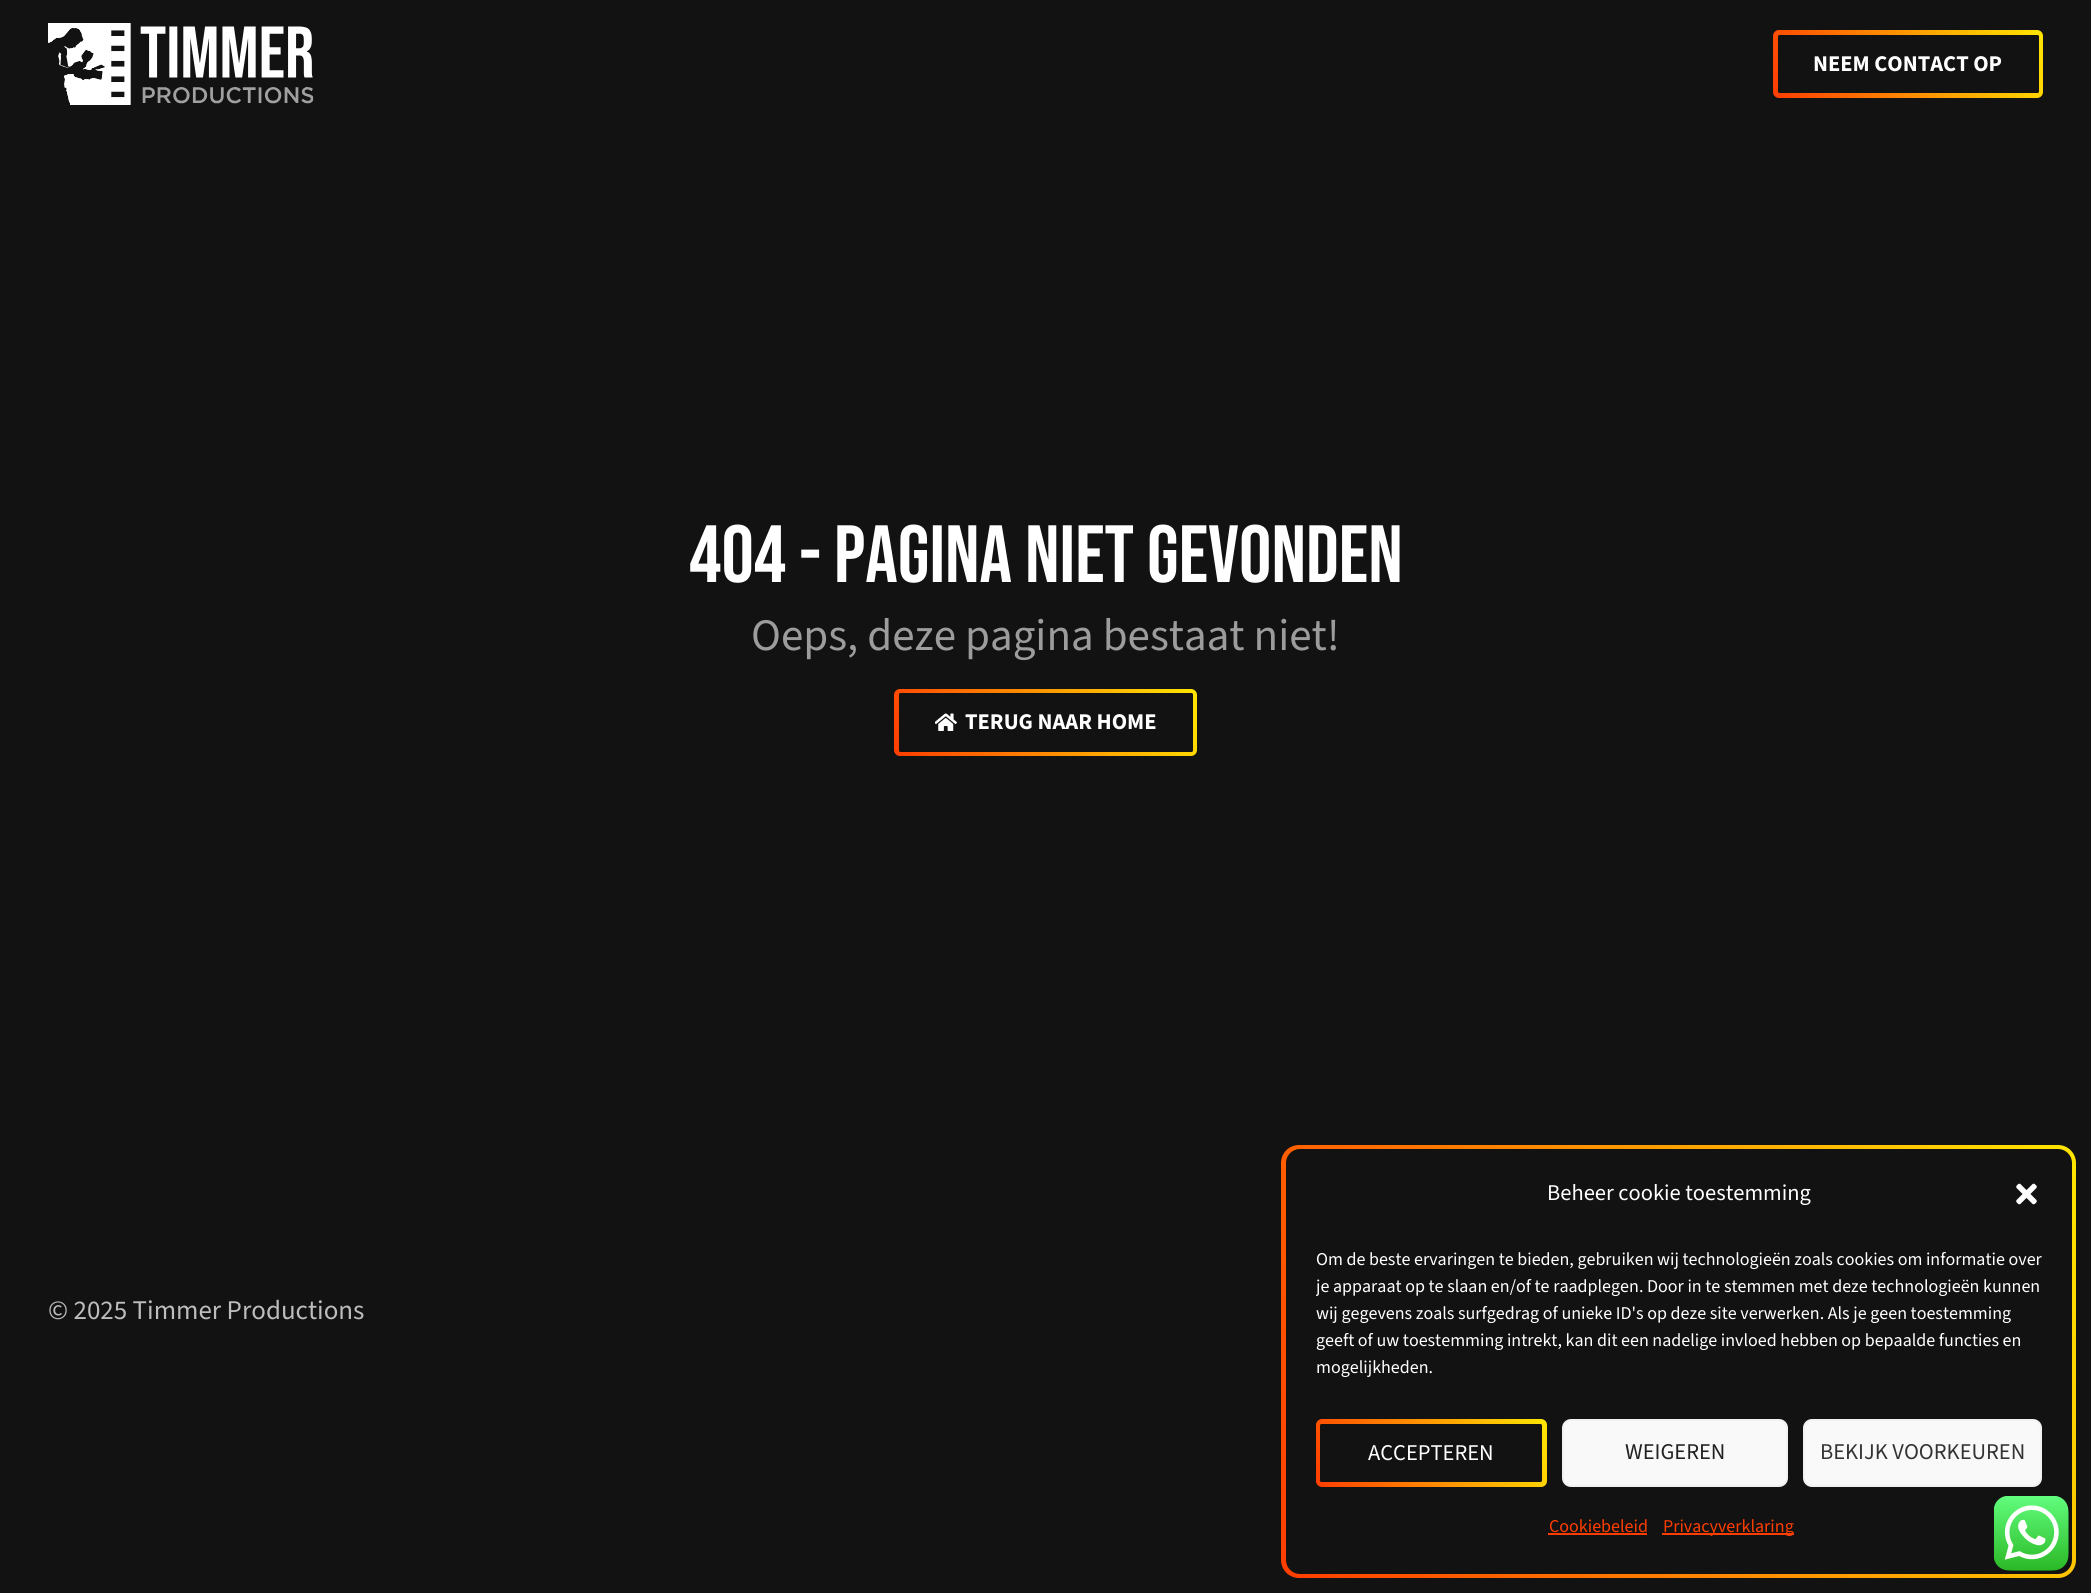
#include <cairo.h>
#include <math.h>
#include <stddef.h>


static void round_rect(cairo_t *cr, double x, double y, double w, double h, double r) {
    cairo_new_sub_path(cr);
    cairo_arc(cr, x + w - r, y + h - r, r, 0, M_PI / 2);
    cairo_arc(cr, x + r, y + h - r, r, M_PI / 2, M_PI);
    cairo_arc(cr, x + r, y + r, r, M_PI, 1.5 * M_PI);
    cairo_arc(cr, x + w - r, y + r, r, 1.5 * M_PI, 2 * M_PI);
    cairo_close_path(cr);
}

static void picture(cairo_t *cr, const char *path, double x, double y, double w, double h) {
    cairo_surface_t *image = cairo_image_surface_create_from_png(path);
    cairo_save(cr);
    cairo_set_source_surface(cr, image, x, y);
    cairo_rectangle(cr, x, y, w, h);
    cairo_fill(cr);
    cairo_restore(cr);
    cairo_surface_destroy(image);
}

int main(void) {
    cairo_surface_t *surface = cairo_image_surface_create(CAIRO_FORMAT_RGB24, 2091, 1593);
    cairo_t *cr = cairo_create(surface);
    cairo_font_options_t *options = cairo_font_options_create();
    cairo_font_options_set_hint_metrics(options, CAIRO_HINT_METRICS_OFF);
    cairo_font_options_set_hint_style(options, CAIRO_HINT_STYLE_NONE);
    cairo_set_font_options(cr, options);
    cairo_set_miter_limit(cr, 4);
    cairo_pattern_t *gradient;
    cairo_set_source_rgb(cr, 0.071, 0.071, 0.071);
    cairo_paint(cr);
    picture(cr, "img1.png", 48, 23, 266, 82);
    gradient = cairo_pattern_create_linear(2033, 8, 1783, 119);
    cairo_pattern_add_color_stop_rgba(gradient, 0, 1, 0.902, 0, 1);
    cairo_pattern_add_color_stop_rgba(gradient, 1, 1, 0.239, 0, 1);
    cairo_set_source(cr, gradient);
    cairo_pattern_destroy(gradient);
    round_rect(cr, 1773, 30, 270, 68, 6);
    cairo_fill(cr);
    cairo_set_source_rgb(cr, 0.071, 0.071, 0.071);
    round_rect(cr, 1778, 35, 261, 58, 1.5);
    cairo_fill(cr);
    cairo_select_font_face(cr, "Source Sans 3", CAIRO_FONT_SLANT_NORMAL, CAIRO_FONT_WEIGHT_BOLD);
    cairo_set_font_size(cr, 22.5);
    cairo_set_source_rgb(cr, 1, 1, 1);
    cairo_move_to(cr, 1813, 71);
    cairo_show_text(cr, "NEEM CONTACT OP");
    cairo_select_font_face(cr, "Bebas Neue", CAIRO_FONT_SLANT_NORMAL, CAIRO_FONT_WEIGHT_NORMAL);
    cairo_set_font_size(cr, 81);
    cairo_move_to(cr, 689, 582);
    cairo_show_text(cr, "404 - pagina niet gevonden");
    cairo_select_font_face(cr, "Source Sans 3", CAIRO_FONT_SLANT_NORMAL, CAIRO_FONT_WEIGHT_NORMAL);
    cairo_set_font_size(cr, 45);
    cairo_set_source_rgb(cr, 0.612, 0.612, 0.612);
    cairo_move_to(cr, 751, 650);
    cairo_show_text(cr, "Oeps, deze pagina bestaat niet!");
    gradient = cairo_pattern_create_linear(1184, 660, 907, 784);
    cairo_pattern_add_color_stop_rgba(gradient, 0, 1, 0.902, 0, 1);
    cairo_pattern_add_color_stop_rgba(gradient, 1, 1, 0.239, 0, 1);
    cairo_set_source(cr, gradient);
    cairo_pattern_destroy(gradient);
    round_rect(cr, 894, 689, 303, 67, 6);
    cairo_fill(cr);
    cairo_set_source_rgb(cr, 0.071, 0.071, 0.071);
    round_rect(cr, 899, 693, 294, 59, 1.5);
    cairo_fill(cr);
    picture(cr, "img2.png", 935, 713, 22, 18);
    cairo_select_font_face(cr, "Source Sans 3", CAIRO_FONT_SLANT_NORMAL, CAIRO_FONT_WEIGHT_BOLD);
    cairo_set_font_size(cr, 22.5);
    cairo_set_source_rgb(cr, 1, 1, 1);
    cairo_move_to(cr, 965, 729);
    cairo_show_text(cr, "TERUG NAAR HOME");
    cairo_select_font_face(cr, "Source Sans 3", CAIRO_FONT_SLANT_NORMAL, CAIRO_FONT_WEIGHT_NORMAL);
    cairo_set_font_size(cr, 27);
    cairo_set_source_rgb(cr, 0.741, 0.741, 0.741);
    cairo_move_to(cr, 48, 1319);
    cairo_show_text(cr, "© 2025 Timmer Productions");
    gradient = cairo_pattern_create_linear(2091, 1178, 1266, 1545);
    cairo_pattern_add_color_stop_rgba(gradient, 0, 1, 0.902, 0, 1);
    cairo_pattern_add_color_stop_rgba(gradient, 1, 1, 0.239, 0, 1);
    cairo_set_source(cr, gradient);
    cairo_pattern_destroy(gradient);
    round_rect(cr, 1281, 1145, 795, 433, 18);
    cairo_fill(cr);
    cairo_set_source_rgb(cr, 0.071, 0.071, 0.071);
    round_rect(cr, 1286, 1149, 786, 425, 14);
    cairo_fill(cr);
    cairo_set_font_size(cr, 22.5);
    cairo_set_source_rgb(cr, 1, 1, 1);
    cairo_move_to(cr, 1547, 1200);
    cairo_show_text(cr, "Beheer cookie toestemming");
    picture(cr, "img3.png", 2016, 1183, 21, 22);
    cairo_set_font_size(cr, 18);
    cairo_move_to(cr, 1316, 1265);
    cairo_show_text(cr, "Om de beste ervaringen te bieden, gebruiken wij technologieën zoals cookies om informatie over");
    cairo_save(cr);
    cairo_rectangle(cr, 1316, 1247, 726, 142);
    cairo_clip(cr);
    cairo_move_to(cr, 1316, 1292);
    cairo_show_text(cr, "je apparaat op te slaan en/of te raadplegen. Door in te stemmen met deze technologieën kunnen");
    cairo_restore(cr);
    cairo_move_to(cr, 1316, 1319);
    cairo_show_text(cr, "wij gegevens zoals surfgedrag of unieke ID's op deze site verwerken. Als je geen toestemming");
    cairo_move_to(cr, 1316, 1346);
    cairo_show_text(cr, "geeft of uw toestemming intrekt, kan dit een nadelige invloed hebben op bepaalde functies en");
    cairo_move_to(cr, 1316, 1373);
    cairo_show_text(cr, "mogelijkheden.");
    gradient = cairo_pattern_create_linear(1540, 1404, 1322, 1501);
    cairo_pattern_add_color_stop_rgba(gradient, 0, 1, 0.902, 0, 1);
    cairo_pattern_add_color_stop_rgba(gradient, 1, 1, 0.239, 0, 1);
    cairo_set_source(cr, gradient);
    cairo_pattern_destroy(gradient);
    round_rect(cr, 1316, 1419, 231, 68, 6);
    cairo_fill(cr);
    cairo_set_source_rgb(cr, 0.071, 0.071, 0.071);
    round_rect(cr, 1320, 1424, 222, 58, 1.5);
    cairo_fill(cr);
    cairo_set_font_size(cr, 22.5);
    cairo_set_source_rgb(cr, 1, 1, 1);
    cairo_move_to(cr, 1368, 1460);
    cairo_show_text(cr, "ACCEPTEREN");
    cairo_set_source_rgb(cr, 0.976, 0.976, 0.976);
    round_rect(cr, 1563, 1420, 224, 66, 8);
    cairo_fill_preserve(cr);
    cairo_set_source_rgb(cr, 0.949, 0.949, 0.949);
    cairo_stroke(cr);
    cairo_set_source_rgb(cr, 0.133, 0.133, 0.133);
    cairo_move_to(cr, 1625, 1459);
    cairo_show_text(cr, "WEIGEREN");
    cairo_set_source_rgb(cr, 0.976, 0.976, 0.976);
    round_rect(cr, 1804, 1420, 237, 66, 8);
    cairo_fill_preserve(cr);
    cairo_set_source_rgb(cr, 0.949, 0.949, 0.949);
    cairo_stroke(cr);
    cairo_set_source_rgb(cr, 0.2, 0.2, 0.2);
    cairo_move_to(cr, 1820, 1459);
    cairo_show_text(cr, "BEKIJK VOORKEUREN");
    cairo_set_font_size(cr, 18);
    cairo_set_source_rgb(cr, 1, 0.239, 0);
    cairo_move_to(cr, 1549, 1532);
    cairo_show_text(cr, "Cookiebeleid");
    cairo_rectangle(cr, 1548, 1533, 99, 2);
    cairo_fill(cr);
    cairo_rectangle(cr, 1662, 1533, 132, 2);
    cairo_fill(cr);
    cairo_move_to(cr, 1663, 1532);
    cairo_show_text(cr, "Privacyverklaring");
    picture(cr, "img4.png", 1994, 1496, 75, 75);
    cairo_surface_write_to_png(surface, "page.png");
    cairo_font_options_destroy(options);
    cairo_destroy(cr);
    cairo_surface_destroy(surface);
    return 0;
}
